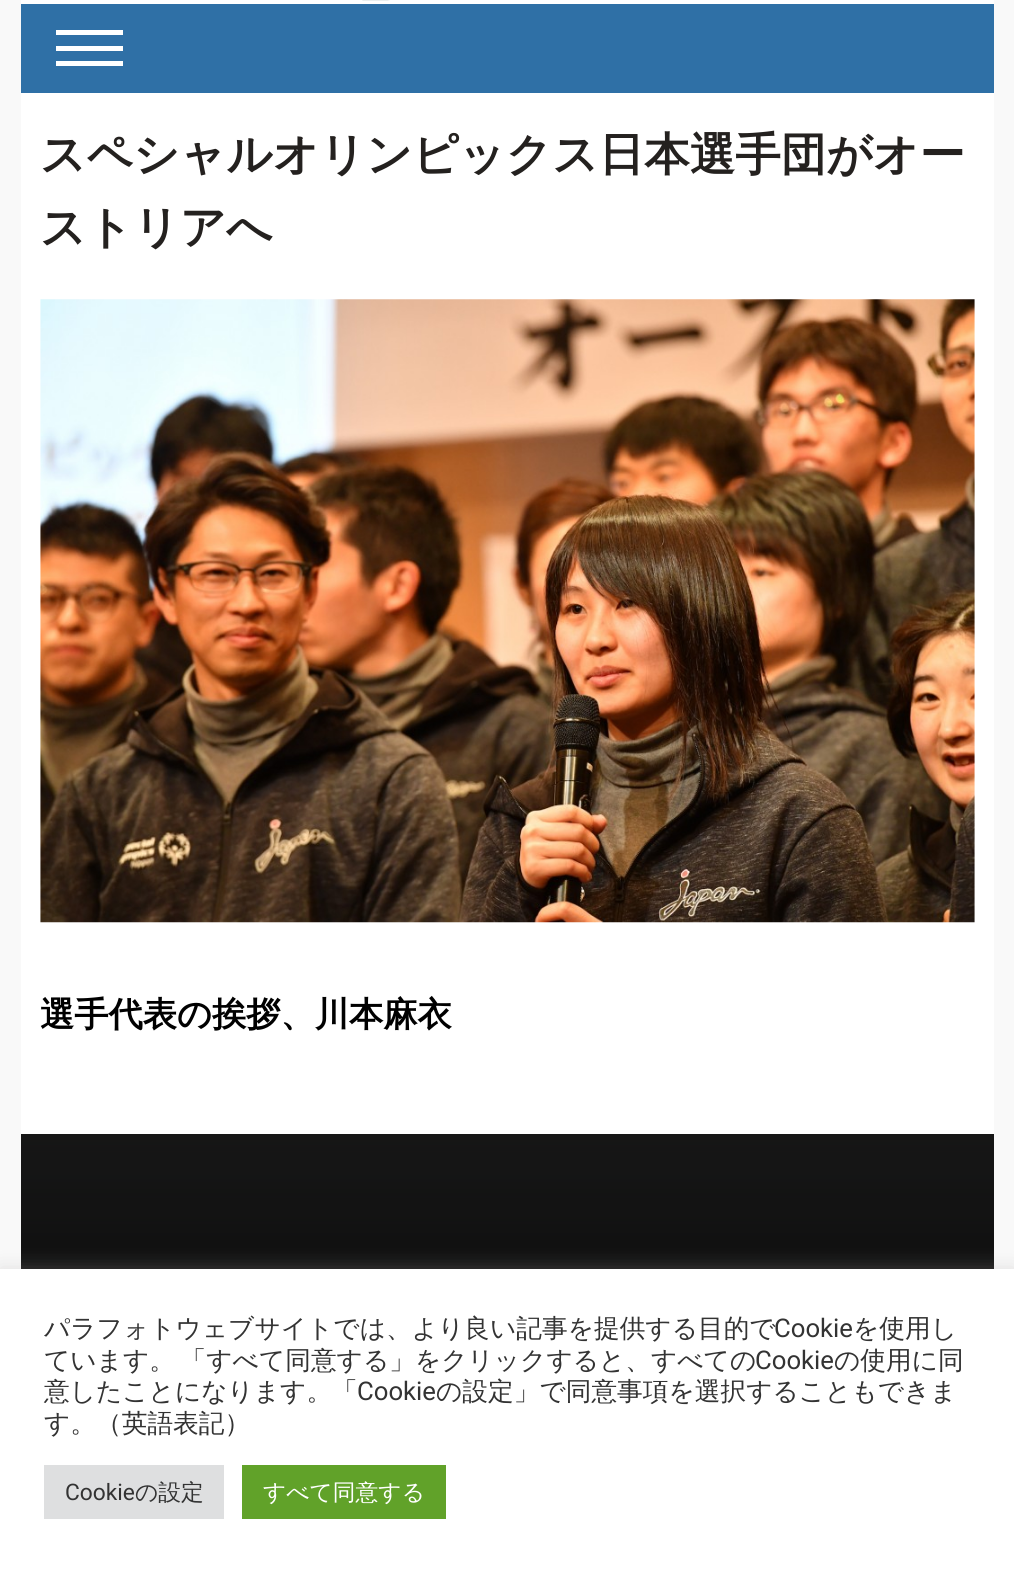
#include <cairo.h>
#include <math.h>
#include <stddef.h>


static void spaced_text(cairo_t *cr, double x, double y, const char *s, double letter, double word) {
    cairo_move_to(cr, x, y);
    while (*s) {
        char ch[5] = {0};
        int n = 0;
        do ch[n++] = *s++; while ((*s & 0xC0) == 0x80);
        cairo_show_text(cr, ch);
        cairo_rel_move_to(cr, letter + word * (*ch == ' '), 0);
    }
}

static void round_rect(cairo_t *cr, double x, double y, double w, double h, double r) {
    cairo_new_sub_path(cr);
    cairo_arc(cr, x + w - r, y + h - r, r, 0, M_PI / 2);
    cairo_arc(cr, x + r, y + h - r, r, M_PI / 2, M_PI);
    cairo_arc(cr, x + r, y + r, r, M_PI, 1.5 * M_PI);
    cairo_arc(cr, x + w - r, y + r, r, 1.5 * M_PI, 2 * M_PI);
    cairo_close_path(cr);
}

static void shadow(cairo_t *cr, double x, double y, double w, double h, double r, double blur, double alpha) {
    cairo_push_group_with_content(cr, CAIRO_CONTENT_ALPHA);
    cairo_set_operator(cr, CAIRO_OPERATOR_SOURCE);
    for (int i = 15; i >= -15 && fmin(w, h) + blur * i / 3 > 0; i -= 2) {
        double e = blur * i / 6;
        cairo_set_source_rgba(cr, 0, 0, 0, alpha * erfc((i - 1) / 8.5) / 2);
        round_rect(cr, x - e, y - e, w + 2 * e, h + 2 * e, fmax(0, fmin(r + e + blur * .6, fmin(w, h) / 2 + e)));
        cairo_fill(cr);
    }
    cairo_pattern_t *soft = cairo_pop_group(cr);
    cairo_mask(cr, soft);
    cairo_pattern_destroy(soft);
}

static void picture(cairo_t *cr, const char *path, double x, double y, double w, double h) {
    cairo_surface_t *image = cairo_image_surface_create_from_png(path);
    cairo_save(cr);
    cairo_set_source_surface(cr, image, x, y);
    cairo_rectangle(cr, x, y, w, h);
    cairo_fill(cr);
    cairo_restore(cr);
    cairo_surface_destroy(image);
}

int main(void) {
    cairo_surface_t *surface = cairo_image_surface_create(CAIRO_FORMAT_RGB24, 1014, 1570);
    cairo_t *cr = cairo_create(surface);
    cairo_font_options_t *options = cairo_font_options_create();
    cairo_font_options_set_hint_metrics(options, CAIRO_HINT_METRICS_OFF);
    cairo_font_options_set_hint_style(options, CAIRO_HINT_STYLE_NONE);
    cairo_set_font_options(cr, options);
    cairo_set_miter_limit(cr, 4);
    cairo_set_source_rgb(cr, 0.976, 0.976, 0.976);
    cairo_paint(cr);
    cairo_set_source_rgb(cr, 1, 1, 1);
    cairo_rectangle(cr, 21, 0, 973, 1134);
    cairo_fill(cr);
    picture(cr, "img1.png", 362, 0, 28, 1);
    cairo_set_source_rgb(cr, 0.184, 0.439, 0.651);
    cairo_rectangle(cr, 21, 4, 973, 89);
    cairo_fill(cr);
    cairo_set_source_rgb(cr, 1, 1, 1);
    cairo_rectangle(cr, 56, 30, 67, 5);
    cairo_fill(cr);
    cairo_rectangle(cr, 56, 46, 67, 5);
    cairo_fill(cr);
    cairo_rectangle(cr, 56, 61, 67, 5);
    cairo_fill(cr);
    cairo_select_font_face(cr, "WenQuanYi Zen Hei", CAIRO_FONT_SLANT_NORMAL, CAIRO_FONT_WEIGHT_BOLD);
    cairo_set_font_size(cr, 45.5);
    cairo_set_source_rgb(cr, 0.141, 0.129, 0.122);
    cairo_move_to(cr, 40, 170);
    cairo_show_text(cr, "スペシャルオリンピックス日本選手団がオー");
    cairo_move_to(cr, 40, 243);
    cairo_show_text(cr, "ストリアへ");
    picture(cr, "img2.png", 40, 299, 935, 624);
    cairo_set_font_size(cr, 34.25);
    cairo_set_source_rgb(cr, 0, 0, 0);
    cairo_move_to(cr, 40, 1026);
    cairo_show_text(cr, "選手代表の挨拶、川本麻衣");
    picture(cr, "img3.png", 21, 1134, 973, 135);
    cairo_set_source_rgb(cr, 0.675, 0.671, 0.671);
    shadow(cr, 0, 1267, 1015, 303, 0, 9, 0.3);
    cairo_set_source_rgb(cr, 1, 1, 1);
    cairo_rectangle(cr, 0, 1269, 1014, 301);
    cairo_fill(cr);
    cairo_select_font_face(cr, "WenQuanYi Zen Hei Medium", CAIRO_FONT_SLANT_NORMAL, CAIRO_FONT_WEIGHT_NORMAL);
    cairo_set_font_size(cr, 25.7);
    cairo_set_source_rgb(cr, 0.2, 0.2, 0.2);
    cairo_move_to(cr, 44, 1337);
    cairo_show_text(cr, "パラフォトウェブサイトでは、より良い記事を提供する目的で");
    cairo_select_font_face(cr, "Roboto", CAIRO_FONT_SLANT_NORMAL, CAIRO_FONT_WEIGHT_NORMAL);
    cairo_move_to(cr, 774, 1337);
    cairo_show_text(cr, "Cookie");
    cairo_select_font_face(cr, "WenQuanYi Zen Hei Medium", CAIRO_FONT_SLANT_NORMAL, CAIRO_FONT_WEIGHT_NORMAL);
    cairo_move_to(cr, 853, 1337);
    cairo_show_text(cr, "を使用し");
    spaced_text(cr, 44, 1369, "ています。 「すべて同意する」をクリックすると、すべての", 0, -2);
    cairo_select_font_face(cr, "Roboto", CAIRO_FONT_SLANT_NORMAL, CAIRO_FONT_WEIGHT_NORMAL);
    cairo_move_to(cr, 755, 1369);
    cairo_show_text(cr, "Cookie");
    cairo_select_font_face(cr, "WenQuanYi Zen Hei Medium", CAIRO_FONT_SLANT_NORMAL, CAIRO_FONT_WEIGHT_NORMAL);
    cairo_move_to(cr, 834, 1369);
    cairo_show_text(cr, "の使用に同");
    cairo_move_to(cr, 44, 1400);
    cairo_show_text(cr, "意したことになります。「");
    cairo_select_font_face(cr, "Roboto", CAIRO_FONT_SLANT_NORMAL, CAIRO_FONT_WEIGHT_NORMAL);
    cairo_move_to(cr, 357, 1400);
    cairo_show_text(cr, "Cookie");
    cairo_select_font_face(cr, "WenQuanYi Zen Hei Medium", CAIRO_FONT_SLANT_NORMAL, CAIRO_FONT_WEIGHT_NORMAL);
    cairo_move_to(cr, 436, 1400);
    cairo_show_text(cr, "の設定」で同意事項を選択することもできま");
    cairo_move_to(cr, 44, 1432);
    cairo_show_text(cr, "す。（英語表記）");
    cairo_set_source_rgb(cr, 0.871, 0.875, 0.878);
    cairo_rectangle(cr, 44, 1465, 180, 54);
    cairo_fill(cr);
    cairo_select_font_face(cr, "Roboto", CAIRO_FONT_SLANT_NORMAL, CAIRO_FONT_WEIGHT_NORMAL);
    cairo_set_font_size(cr, 22.75);
    cairo_set_source_rgb(cr, 0.2, 0.2, 0.2);
    cairo_move_to(cr, 65, 1500);
    cairo_show_text(cr, "Cookie");
    cairo_select_font_face(cr, "WenQuanYi Zen Hei Medium", CAIRO_FONT_SLANT_NORMAL, CAIRO_FONT_WEIGHT_NORMAL);
    cairo_move_to(cr, 135, 1500);
    cairo_show_text(cr, "の設定");
    cairo_set_source_rgb(cr, 0.38, 0.635, 0.161);
    cairo_rectangle(cr, 242, 1465, 204, 54);
    cairo_fill(cr);
    cairo_set_source_rgb(cr, 1, 1, 1);
    cairo_move_to(cr, 263, 1500);
    cairo_show_text(cr, "すべて同意する");
    cairo_surface_write_to_png(surface, "page.png");
    cairo_font_options_destroy(options);
    cairo_destroy(cr);
    cairo_surface_destroy(surface);
    return 0;
}
